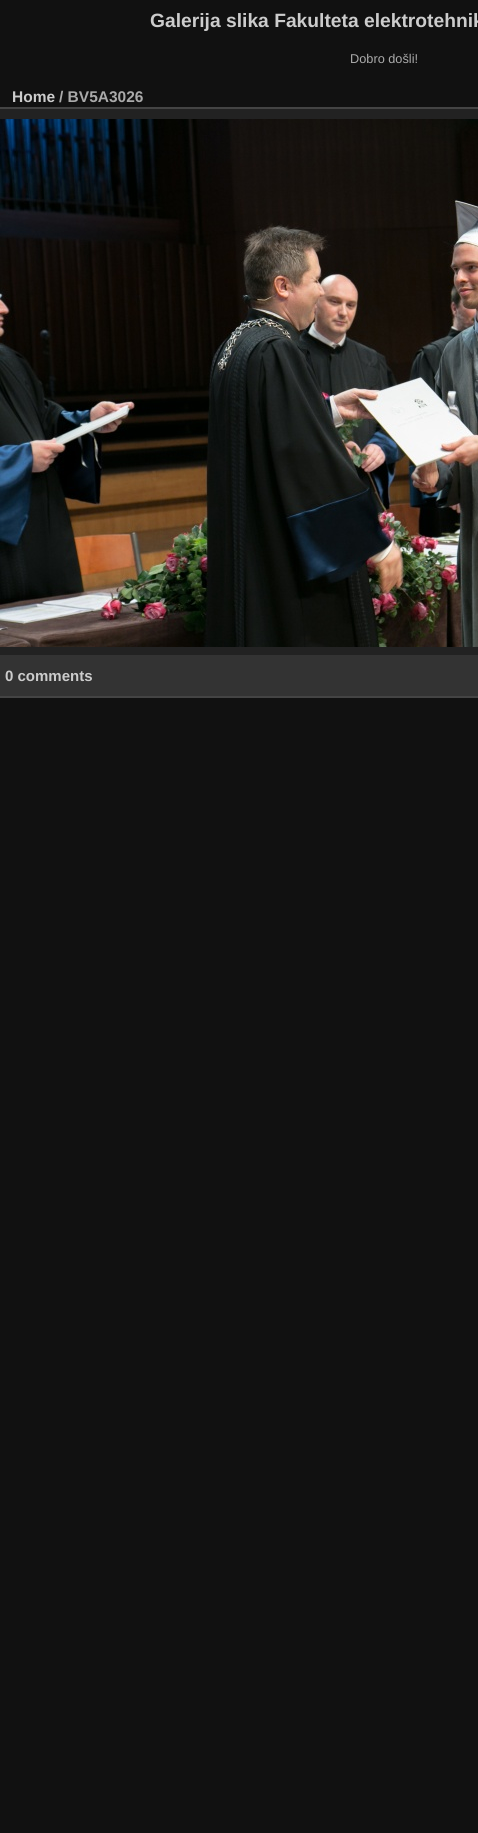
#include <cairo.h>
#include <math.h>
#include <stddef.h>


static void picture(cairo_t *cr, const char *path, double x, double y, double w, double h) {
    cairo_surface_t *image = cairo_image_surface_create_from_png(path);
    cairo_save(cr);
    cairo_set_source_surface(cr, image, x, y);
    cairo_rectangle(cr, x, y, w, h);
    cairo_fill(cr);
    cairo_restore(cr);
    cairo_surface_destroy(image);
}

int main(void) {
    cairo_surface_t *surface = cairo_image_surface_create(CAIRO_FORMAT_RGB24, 478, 1833);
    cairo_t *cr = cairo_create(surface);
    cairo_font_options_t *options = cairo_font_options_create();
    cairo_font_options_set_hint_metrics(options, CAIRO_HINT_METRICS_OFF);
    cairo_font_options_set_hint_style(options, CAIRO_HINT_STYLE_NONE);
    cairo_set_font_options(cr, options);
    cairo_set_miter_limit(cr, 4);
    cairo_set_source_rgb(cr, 0.067, 0.067, 0.067);
    cairo_paint(cr);
    cairo_select_font_face(cr, "Liberation Sans", CAIRO_FONT_SLANT_NORMAL, CAIRO_FONT_WEIGHT_BOLD);
    cairo_set_font_size(cr, 19.25);
    cairo_set_source_rgb(cr, 0.8, 0.8, 0.8);
    cairo_move_to(cr, 150, 27);
    cairo_show_text(cr, "Galerija slika Fakulteta elektrotehnik");
    cairo_select_font_face(cr, "Liberation Sans", CAIRO_FONT_SLANT_NORMAL, CAIRO_FONT_WEIGHT_NORMAL);
    cairo_set_font_size(cr, 12.75);
    cairo_set_source_rgb(cr, 0.667, 0.667, 0.667);
    cairo_move_to(cr, 350, 63);
    cairo_show_text(cr, "Dobro došli!");
    cairo_set_source_rgb(cr, 0.133, 0.133, 0.133);
    cairo_rectangle(cr, 0, 109, 478, 546);
    cairo_fill(cr);
    cairo_set_source_rgb(cr, 0.267, 0.267, 0.267);
    cairo_rectangle(cr, 0, 696, 478, 2);
    cairo_fill(cr);
    cairo_rectangle(cr, 0, 107, 478, 2);
    cairo_fill(cr);
    cairo_select_font_face(cr, "Liberation Sans", CAIRO_FONT_SLANT_NORMAL, CAIRO_FONT_WEIGHT_BOLD);
    cairo_set_font_size(cr, 15.5);
    cairo_set_source_rgb(cr, 0.8, 0.8, 0.8);
    cairo_move_to(cr, 12, 102);
    cairo_show_text(cr, "Home");
    cairo_set_source_rgb(cr, 0.667, 0.667, 0.667);
    cairo_move_to(cr, 59, 102);
    cairo_show_text(cr, "/ BV5A3026");
    picture(cr, "img1.png", 0, 119, 478, 528);
    cairo_set_source_rgb(cr, 0.2, 0.2, 0.2);
    cairo_rectangle(cr, 0, 655, 478, 41);
    cairo_fill(cr);
    cairo_set_font_size(cr, 15);
    cairo_set_source_rgb(cr, 0.8, 0.8, 0.8);
    cairo_move_to(cr, 5, 681);
    cairo_show_text(cr, "0 comments");
    cairo_surface_write_to_png(surface, "page.png");
    cairo_font_options_destroy(options);
    cairo_destroy(cr);
    cairo_surface_destroy(surface);
    return 0;
}
